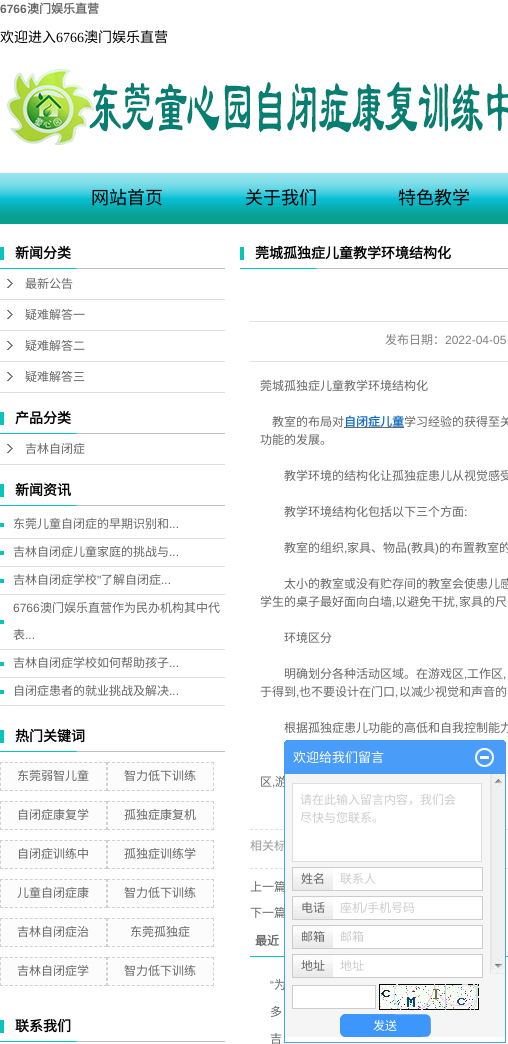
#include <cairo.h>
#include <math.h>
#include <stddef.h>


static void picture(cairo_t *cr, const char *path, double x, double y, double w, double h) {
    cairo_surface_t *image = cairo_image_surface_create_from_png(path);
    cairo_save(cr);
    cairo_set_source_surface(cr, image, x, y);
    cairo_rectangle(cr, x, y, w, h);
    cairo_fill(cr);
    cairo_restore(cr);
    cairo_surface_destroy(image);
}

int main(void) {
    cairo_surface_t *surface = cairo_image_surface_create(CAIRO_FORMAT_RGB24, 508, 1044);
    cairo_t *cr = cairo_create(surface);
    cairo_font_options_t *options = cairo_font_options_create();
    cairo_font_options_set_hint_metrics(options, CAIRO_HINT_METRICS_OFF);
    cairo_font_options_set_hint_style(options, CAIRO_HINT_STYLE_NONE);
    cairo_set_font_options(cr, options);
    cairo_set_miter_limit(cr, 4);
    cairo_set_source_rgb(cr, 1, 1, 1);
    cairo_paint(cr);
    cairo_select_font_face(cr, "Liberation Sans", CAIRO_FONT_SLANT_NORMAL, CAIRO_FONT_WEIGHT_BOLD);
    cairo_set_font_size(cr, 12);
    cairo_set_source_rgb(cr, 0.4, 0.4, 0.4);
    cairo_move_to(cr, 0, 13);
    cairo_show_text(cr, "6766");
    cairo_select_font_face(cr, "Noto Sans CJK SC", CAIRO_FONT_SLANT_NORMAL, CAIRO_FONT_WEIGHT_BOLD);
    cairo_move_to(cr, 27, 13);
    cairo_show_text(cr, "澳门娱乐直营");
    picture(cr, "img1.png", 0, 171, 508, 55);
    cairo_select_font_face(cr, "Noto Sans CJK SC", CAIRO_FONT_SLANT_NORMAL, CAIRO_FONT_WEIGHT_NORMAL);
    cairo_set_font_size(cr, 14);
    cairo_set_source_rgb(cr, 0, 0, 0);
    cairo_move_to(cr, 0, 42);
    cairo_show_text(cr, "欢迎进入");
    cairo_select_font_face(cr, "Liberation Serif", CAIRO_FONT_SLANT_NORMAL, CAIRO_FONT_WEIGHT_NORMAL);
    cairo_move_to(cr, 56, 42);
    cairo_show_text(cr, "6766");
    cairo_select_font_face(cr, "Noto Sans CJK SC", CAIRO_FONT_SLANT_NORMAL, CAIRO_FONT_WEIGHT_NORMAL);
    cairo_move_to(cr, 84, 42);
    cairo_show_text(cr, "澳门娱乐直营");
    picture(cr, "img2.png", 7, 69, 501, 76);
    cairo_set_font_size(cr, 18);
    cairo_move_to(cr, 91, 204);
    cairo_show_text(cr, "网站首页");
    cairo_move_to(cr, 245, 204);
    cairo_show_text(cr, "关于我们");
    cairo_move_to(cr, 398, 204);
    cairo_show_text(cr, "特色教学");
    picture(cr, "img3.png", 0, 247, 225, 22);
    cairo_select_font_face(cr, "Noto Sans CJK SC", CAIRO_FONT_SLANT_NORMAL, CAIRO_FONT_WEIGHT_BOLD);
    cairo_set_font_size(cr, 14);
    cairo_move_to(cr, 15, 258);
    cairo_show_text(cr, "新闻分类");
    picture(cr, "img4.png", 7, 279, 6, 9);
    cairo_set_source_rgb(cr, 0.867, 0.867, 0.867);
    cairo_rectangle(cr, 0, 299, 225, 1);
    cairo_fill(cr);
    cairo_select_font_face(cr, "Noto Sans CJK SC", CAIRO_FONT_SLANT_NORMAL, CAIRO_FONT_WEIGHT_NORMAL);
    cairo_set_font_size(cr, 12);
    cairo_set_source_rgb(cr, 0.4, 0.4, 0.4);
    cairo_move_to(cr, 25, 288);
    cairo_show_text(cr, "最新公告");
    picture(cr, "img4.png", 7, 310, 6, 9);
    cairo_set_source_rgb(cr, 0.867, 0.867, 0.867);
    cairo_rectangle(cr, 0, 330, 225, 1);
    cairo_fill(cr);
    cairo_set_source_rgb(cr, 0.4, 0.4, 0.4);
    cairo_move_to(cr, 25, 319);
    cairo_show_text(cr, "疑难解答一");
    picture(cr, "img4.png", 7, 341, 6, 9);
    cairo_set_source_rgb(cr, 0.867, 0.867, 0.867);
    cairo_rectangle(cr, 0, 361, 225, 1);
    cairo_fill(cr);
    cairo_set_source_rgb(cr, 0.4, 0.4, 0.4);
    cairo_move_to(cr, 25, 350);
    cairo_show_text(cr, "疑难解答二");
    picture(cr, "img4.png", 7, 372, 6, 9);
    cairo_set_source_rgb(cr, 0.867, 0.867, 0.867);
    cairo_rectangle(cr, 0, 392, 225, 1);
    cairo_fill(cr);
    cairo_set_source_rgb(cr, 0.4, 0.4, 0.4);
    cairo_move_to(cr, 25, 381);
    cairo_show_text(cr, "疑难解答三");
    picture(cr, "img3.png", 0, 412, 225, 22);
    cairo_select_font_face(cr, "Noto Sans CJK SC", CAIRO_FONT_SLANT_NORMAL, CAIRO_FONT_WEIGHT_BOLD);
    cairo_set_font_size(cr, 14);
    cairo_set_source_rgb(cr, 0, 0, 0);
    cairo_move_to(cr, 15, 423);
    cairo_show_text(cr, "产品分类");
    picture(cr, "img4.png", 7, 444, 6, 9);
    cairo_set_source_rgb(cr, 0.867, 0.867, 0.867);
    cairo_rectangle(cr, 0, 464, 225, 1);
    cairo_fill(cr);
    cairo_select_font_face(cr, "Noto Sans CJK SC", CAIRO_FONT_SLANT_NORMAL, CAIRO_FONT_WEIGHT_NORMAL);
    cairo_set_font_size(cr, 12);
    cairo_set_source_rgb(cr, 0.4, 0.4, 0.4);
    cairo_move_to(cr, 25, 453);
    cairo_show_text(cr, "吉林自闭症");
    picture(cr, "img3.png", 0, 484, 225, 22);
    cairo_select_font_face(cr, "Noto Sans CJK SC", CAIRO_FONT_SLANT_NORMAL, CAIRO_FONT_WEIGHT_BOLD);
    cairo_set_font_size(cr, 14);
    cairo_set_source_rgb(cr, 0, 0, 0);
    cairo_move_to(cr, 15, 495);
    cairo_show_text(cr, "新闻资讯");
    cairo_set_source_rgb(cr, 0.027, 0.769, 0.745);
    cairo_rectangle(cr, 0, 523, 4, 4);
    cairo_fill(cr);
    cairo_set_source_rgb(cr, 0.867, 0.867, 0.867);
    cairo_rectangle(cr, 0, 538, 225, 1);
    cairo_fill(cr);
    cairo_select_font_face(cr, "Noto Sans CJK SC", CAIRO_FONT_SLANT_NORMAL, CAIRO_FONT_WEIGHT_NORMAL);
    cairo_set_font_size(cr, 12);
    cairo_set_source_rgb(cr, 0.4, 0.4, 0.4);
    cairo_move_to(cr, 13, 528);
    cairo_show_text(cr, "东莞儿童自闭症的早期识别和");
    cairo_select_font_face(cr, "Liberation Sans", CAIRO_FONT_SLANT_NORMAL, CAIRO_FONT_WEIGHT_NORMAL);
    cairo_move_to(cr, 169, 528);
    cairo_show_text(cr, "...");
    cairo_set_source_rgb(cr, 0.027, 0.769, 0.745);
    cairo_rectangle(cr, 0, 551, 4, 4);
    cairo_fill(cr);
    cairo_set_source_rgb(cr, 0.867, 0.867, 0.867);
    cairo_rectangle(cr, 0, 566, 225, 1);
    cairo_fill(cr);
    cairo_select_font_face(cr, "Noto Sans CJK SC", CAIRO_FONT_SLANT_NORMAL, CAIRO_FONT_WEIGHT_NORMAL);
    cairo_set_source_rgb(cr, 0.4, 0.4, 0.4);
    cairo_move_to(cr, 13, 556);
    cairo_show_text(cr, "吉林自闭症儿童家庭的挑战与");
    cairo_select_font_face(cr, "Liberation Sans", CAIRO_FONT_SLANT_NORMAL, CAIRO_FONT_WEIGHT_NORMAL);
    cairo_move_to(cr, 169, 556);
    cairo_show_text(cr, "...");
    cairo_set_source_rgb(cr, 0.027, 0.769, 0.745);
    cairo_rectangle(cr, 0, 579, 4, 4);
    cairo_fill(cr);
    cairo_set_source_rgb(cr, 0.867, 0.867, 0.867);
    cairo_rectangle(cr, 0, 594, 225, 1);
    cairo_fill(cr);
    cairo_select_font_face(cr, "Noto Sans CJK SC", CAIRO_FONT_SLANT_NORMAL, CAIRO_FONT_WEIGHT_NORMAL);
    cairo_set_source_rgb(cr, 0.4, 0.4, 0.4);
    cairo_move_to(cr, 13, 584);
    cairo_show_text(cr, "吉林自闭症学校");
    cairo_select_font_face(cr, "Liberation Sans", CAIRO_FONT_SLANT_NORMAL, CAIRO_FONT_WEIGHT_NORMAL);
    cairo_move_to(cr, 97, 584);
    cairo_show_text(cr, "\"");
    cairo_select_font_face(cr, "Noto Sans CJK SC", CAIRO_FONT_SLANT_NORMAL, CAIRO_FONT_WEIGHT_NORMAL);
    cairo_move_to(cr, 101, 584);
    cairo_show_text(cr, "了解自闭症");
    cairo_select_font_face(cr, "Liberation Sans", CAIRO_FONT_SLANT_NORMAL, CAIRO_FONT_WEIGHT_NORMAL);
    cairo_move_to(cr, 161, 584);
    cairo_show_text(cr, "...");
    cairo_set_source_rgb(cr, 0.027, 0.769, 0.745);
    cairo_rectangle(cr, 0, 620, 4, 4);
    cairo_fill(cr);
    cairo_set_source_rgb(cr, 0.867, 0.867, 0.867);
    cairo_rectangle(cr, 0, 649, 225, 1);
    cairo_fill(cr);
    cairo_set_source_rgb(cr, 0.4, 0.4, 0.4);
    cairo_move_to(cr, 13, 612);
    cairo_show_text(cr, "6766");
    cairo_select_font_face(cr, "Noto Sans CJK SC", CAIRO_FONT_SLANT_NORMAL, CAIRO_FONT_WEIGHT_NORMAL);
    cairo_move_to(cr, 40, 612);
    cairo_show_text(cr, "澳门娱乐直营作为民办机构其中代");
    cairo_move_to(cr, 13, 639);
    cairo_show_text(cr, "表");
    cairo_select_font_face(cr, "Liberation Sans", CAIRO_FONT_SLANT_NORMAL, CAIRO_FONT_WEIGHT_NORMAL);
    cairo_move_to(cr, 25, 639);
    cairo_show_text(cr, "...");
    cairo_set_source_rgb(cr, 0.027, 0.769, 0.745);
    cairo_rectangle(cr, 0, 662, 4, 4);
    cairo_fill(cr);
    cairo_set_source_rgb(cr, 0.867, 0.867, 0.867);
    cairo_rectangle(cr, 0, 677, 225, 1);
    cairo_fill(cr);
    cairo_select_font_face(cr, "Noto Sans CJK SC", CAIRO_FONT_SLANT_NORMAL, CAIRO_FONT_WEIGHT_NORMAL);
    cairo_set_source_rgb(cr, 0.4, 0.4, 0.4);
    cairo_move_to(cr, 13, 667);
    cairo_show_text(cr, "吉林自闭症学校如何帮助孩子");
    cairo_select_font_face(cr, "Liberation Sans", CAIRO_FONT_SLANT_NORMAL, CAIRO_FONT_WEIGHT_NORMAL);
    cairo_move_to(cr, 169, 667);
    cairo_show_text(cr, "...");
    cairo_set_source_rgb(cr, 0.027, 0.769, 0.745);
    cairo_rectangle(cr, 0, 690, 4, 4);
    cairo_fill(cr);
    cairo_set_source_rgb(cr, 0.867, 0.867, 0.867);
    cairo_rectangle(cr, 0, 705, 225, 1);
    cairo_fill(cr);
    cairo_select_font_face(cr, "Noto Sans CJK SC", CAIRO_FONT_SLANT_NORMAL, CAIRO_FONT_WEIGHT_NORMAL);
    cairo_set_source_rgb(cr, 0.4, 0.4, 0.4);
    cairo_move_to(cr, 13, 695);
    cairo_show_text(cr, "自闭症患者的就业挑战及解决");
    cairo_select_font_face(cr, "Liberation Sans", CAIRO_FONT_SLANT_NORMAL, CAIRO_FONT_WEIGHT_NORMAL);
    cairo_move_to(cr, 169, 695);
    cairo_show_text(cr, "...");
    picture(cr, "img3.png", 0, 730, 225, 22);
    cairo_select_font_face(cr, "Noto Sans CJK SC", CAIRO_FONT_SLANT_NORMAL, CAIRO_FONT_WEIGHT_BOLD);
    cairo_set_font_size(cr, 14);
    cairo_set_source_rgb(cr, 0, 0, 0);
    cairo_move_to(cr, 15, 741);
    cairo_show_text(cr, "热门关键词");
    cairo_set_source_rgb(cr, 0.988, 0.988, 0.988);
    cairo_rectangle(cr, 0, 762, 214, 29);
    cairo_fill(cr);
    cairo_new_path(cr);
    cairo_move_to(cr, 0, 762.5);
    cairo_line_to(cr, 107, 762.5);
    cairo_set_source_rgb(cr, 0.816, 0.816, 0.816);
    cairo_set_line_width(cr, 1);
    cairo_set_dash(cr, (double[]){3, 1.95}, 2, 0);
    cairo_stroke(cr);
    cairo_new_path(cr);
    cairo_move_to(cr, 106.5, 762);
    cairo_line_to(cr, 106.5, 791);
    cairo_set_dash(cr, (double[]){3, 2.2}, 2, 0);
    cairo_stroke(cr);
    cairo_new_path(cr);
    cairo_move_to(cr, 0, 790.5);
    cairo_line_to(cr, 107, 790.5);
    cairo_set_dash(cr, (double[]){3, 1.95}, 2, 0);
    cairo_stroke(cr);
    cairo_new_path(cr);
    cairo_move_to(cr, 0.5, 762);
    cairo_line_to(cr, 0.5, 791);
    cairo_set_dash(cr, (double[]){3, 2.2}, 2, 0);
    cairo_stroke(cr);
    cairo_select_font_face(cr, "Noto Sans CJK SC", CAIRO_FONT_SLANT_NORMAL, CAIRO_FONT_WEIGHT_NORMAL);
    cairo_set_font_size(cr, 12);
    cairo_set_source_rgb(cr, 0.4, 0.4, 0.4);
    cairo_move_to(cr, 17, 780);
    cairo_show_text(cr, "东莞弱智儿童");
    cairo_new_path(cr);
    cairo_move_to(cr, 107, 762.5);
    cairo_line_to(cr, 214, 762.5);
    cairo_set_source_rgb(cr, 0.816, 0.816, 0.816);
    cairo_set_dash(cr, (double[]){3, 1.95}, 2, 0);
    cairo_stroke(cr);
    cairo_new_path(cr);
    cairo_move_to(cr, 213.5, 762);
    cairo_line_to(cr, 213.5, 791);
    cairo_set_dash(cr, (double[]){3, 2.2}, 2, 0);
    cairo_stroke(cr);
    cairo_new_path(cr);
    cairo_move_to(cr, 107, 790.5);
    cairo_line_to(cr, 214, 790.5);
    cairo_set_dash(cr, (double[]){3, 1.95}, 2, 0);
    cairo_stroke(cr);
    cairo_new_path(cr);
    cairo_move_to(cr, 107.5, 762);
    cairo_line_to(cr, 107.5, 791);
    cairo_set_dash(cr, (double[]){3, 2.2}, 2, 0);
    cairo_stroke(cr);
    cairo_set_source_rgb(cr, 0.4, 0.4, 0.4);
    cairo_move_to(cr, 124, 780);
    cairo_show_text(cr, "智力低下训练");
    cairo_set_source_rgb(cr, 0.988, 0.988, 0.988);
    cairo_rectangle(cr, 0, 801, 214, 29);
    cairo_fill(cr);
    cairo_new_path(cr);
    cairo_move_to(cr, 0, 801.5);
    cairo_line_to(cr, 107, 801.5);
    cairo_set_source_rgb(cr, 0.816, 0.816, 0.816);
    cairo_set_dash(cr, (double[]){3, 1.95}, 2, 0);
    cairo_stroke(cr);
    cairo_new_path(cr);
    cairo_move_to(cr, 106.5, 801);
    cairo_line_to(cr, 106.5, 830);
    cairo_set_dash(cr, (double[]){3, 2.2}, 2, 0);
    cairo_stroke(cr);
    cairo_new_path(cr);
    cairo_move_to(cr, 0, 829.5);
    cairo_line_to(cr, 107, 829.5);
    cairo_set_dash(cr, (double[]){3, 1.95}, 2, 0);
    cairo_stroke(cr);
    cairo_new_path(cr);
    cairo_move_to(cr, 0.5, 801);
    cairo_line_to(cr, 0.5, 830);
    cairo_set_dash(cr, (double[]){3, 2.2}, 2, 0);
    cairo_stroke(cr);
    cairo_set_source_rgb(cr, 0.4, 0.4, 0.4);
    cairo_move_to(cr, 17, 819);
    cairo_show_text(cr, "自闭症康复学");
    cairo_new_path(cr);
    cairo_move_to(cr, 107, 801.5);
    cairo_line_to(cr, 214, 801.5);
    cairo_set_source_rgb(cr, 0.816, 0.816, 0.816);
    cairo_set_dash(cr, (double[]){3, 1.95}, 2, 0);
    cairo_stroke(cr);
    cairo_new_path(cr);
    cairo_move_to(cr, 213.5, 801);
    cairo_line_to(cr, 213.5, 830);
    cairo_set_dash(cr, (double[]){3, 2.2}, 2, 0);
    cairo_stroke(cr);
    cairo_new_path(cr);
    cairo_move_to(cr, 107, 829.5);
    cairo_line_to(cr, 214, 829.5);
    cairo_set_dash(cr, (double[]){3, 1.95}, 2, 0);
    cairo_stroke(cr);
    cairo_new_path(cr);
    cairo_move_to(cr, 107.5, 801);
    cairo_line_to(cr, 107.5, 830);
    cairo_set_dash(cr, (double[]){3, 2.2}, 2, 0);
    cairo_stroke(cr);
    cairo_set_source_rgb(cr, 0.4, 0.4, 0.4);
    cairo_move_to(cr, 124, 819);
    cairo_show_text(cr, "孤独症康复机");
    cairo_set_source_rgb(cr, 0.988, 0.988, 0.988);
    cairo_rectangle(cr, 0, 840, 214, 29);
    cairo_fill(cr);
    cairo_new_path(cr);
    cairo_move_to(cr, 0, 840.5);
    cairo_line_to(cr, 107, 840.5);
    cairo_set_source_rgb(cr, 0.816, 0.816, 0.816);
    cairo_set_dash(cr, (double[]){3, 1.95}, 2, 0);
    cairo_stroke(cr);
    cairo_new_path(cr);
    cairo_move_to(cr, 106.5, 840);
    cairo_line_to(cr, 106.5, 869);
    cairo_set_dash(cr, (double[]){3, 2.2}, 2, 0);
    cairo_stroke(cr);
    cairo_new_path(cr);
    cairo_move_to(cr, 0, 868.5);
    cairo_line_to(cr, 107, 868.5);
    cairo_set_dash(cr, (double[]){3, 1.95}, 2, 0);
    cairo_stroke(cr);
    cairo_new_path(cr);
    cairo_move_to(cr, 0.5, 840);
    cairo_line_to(cr, 0.5, 869);
    cairo_set_dash(cr, (double[]){3, 2.2}, 2, 0);
    cairo_stroke(cr);
    cairo_set_source_rgb(cr, 0.4, 0.4, 0.4);
    cairo_move_to(cr, 17, 858);
    cairo_show_text(cr, "自闭症训练中");
    cairo_new_path(cr);
    cairo_move_to(cr, 107, 840.5);
    cairo_line_to(cr, 214, 840.5);
    cairo_set_source_rgb(cr, 0.816, 0.816, 0.816);
    cairo_set_dash(cr, (double[]){3, 1.95}, 2, 0);
    cairo_stroke(cr);
    cairo_new_path(cr);
    cairo_move_to(cr, 213.5, 840);
    cairo_line_to(cr, 213.5, 869);
    cairo_set_dash(cr, (double[]){3, 2.2}, 2, 0);
    cairo_stroke(cr);
    cairo_new_path(cr);
    cairo_move_to(cr, 107, 868.5);
    cairo_line_to(cr, 214, 868.5);
    cairo_set_dash(cr, (double[]){3, 1.95}, 2, 0);
    cairo_stroke(cr);
    cairo_new_path(cr);
    cairo_move_to(cr, 107.5, 840);
    cairo_line_to(cr, 107.5, 869);
    cairo_set_dash(cr, (double[]){3, 2.2}, 2, 0);
    cairo_stroke(cr);
    cairo_set_source_rgb(cr, 0.4, 0.4, 0.4);
    cairo_move_to(cr, 124, 858);
    cairo_show_text(cr, "孤独症训练学");
    cairo_set_source_rgb(cr, 0.988, 0.988, 0.988);
    cairo_rectangle(cr, 0, 879, 214, 29);
    cairo_fill(cr);
    cairo_new_path(cr);
    cairo_move_to(cr, 0, 879.5);
    cairo_line_to(cr, 107, 879.5);
    cairo_set_source_rgb(cr, 0.816, 0.816, 0.816);
    cairo_set_dash(cr, (double[]){3, 1.95}, 2, 0);
    cairo_stroke(cr);
    cairo_new_path(cr);
    cairo_move_to(cr, 106.5, 879);
    cairo_line_to(cr, 106.5, 908);
    cairo_set_dash(cr, (double[]){3, 2.2}, 2, 0);
    cairo_stroke(cr);
    cairo_new_path(cr);
    cairo_move_to(cr, 0, 907.5);
    cairo_line_to(cr, 107, 907.5);
    cairo_set_dash(cr, (double[]){3, 1.95}, 2, 0);
    cairo_stroke(cr);
    cairo_new_path(cr);
    cairo_move_to(cr, 0.5, 879);
    cairo_line_to(cr, 0.5, 908);
    cairo_set_dash(cr, (double[]){3, 2.2}, 2, 0);
    cairo_stroke(cr);
    cairo_set_source_rgb(cr, 0.4, 0.4, 0.4);
    cairo_move_to(cr, 17, 897);
    cairo_show_text(cr, "儿童自闭症康");
    cairo_new_path(cr);
    cairo_move_to(cr, 107, 879.5);
    cairo_line_to(cr, 214, 879.5);
    cairo_set_source_rgb(cr, 0.816, 0.816, 0.816);
    cairo_set_dash(cr, (double[]){3, 1.95}, 2, 0);
    cairo_stroke(cr);
    cairo_new_path(cr);
    cairo_move_to(cr, 213.5, 879);
    cairo_line_to(cr, 213.5, 908);
    cairo_set_dash(cr, (double[]){3, 2.2}, 2, 0);
    cairo_stroke(cr);
    cairo_new_path(cr);
    cairo_move_to(cr, 107, 907.5);
    cairo_line_to(cr, 214, 907.5);
    cairo_set_dash(cr, (double[]){3, 1.95}, 2, 0);
    cairo_stroke(cr);
    cairo_new_path(cr);
    cairo_move_to(cr, 107.5, 879);
    cairo_line_to(cr, 107.5, 908);
    cairo_set_dash(cr, (double[]){3, 2.2}, 2, 0);
    cairo_stroke(cr);
    cairo_set_source_rgb(cr, 0.4, 0.4, 0.4);
    cairo_move_to(cr, 124, 897);
    cairo_show_text(cr, "智力低下训练");
    cairo_set_source_rgb(cr, 0.988, 0.988, 0.988);
    cairo_rectangle(cr, 0, 918, 214, 29);
    cairo_fill(cr);
    cairo_new_path(cr);
    cairo_move_to(cr, 0, 918.5);
    cairo_line_to(cr, 107, 918.5);
    cairo_set_source_rgb(cr, 0.816, 0.816, 0.816);
    cairo_set_dash(cr, (double[]){3, 1.95}, 2, 0);
    cairo_stroke(cr);
    cairo_new_path(cr);
    cairo_move_to(cr, 106.5, 918);
    cairo_line_to(cr, 106.5, 947);
    cairo_set_dash(cr, (double[]){3, 2.2}, 2, 0);
    cairo_stroke(cr);
    cairo_new_path(cr);
    cairo_move_to(cr, 0, 946.5);
    cairo_line_to(cr, 107, 946.5);
    cairo_set_dash(cr, (double[]){3, 1.95}, 2, 0);
    cairo_stroke(cr);
    cairo_new_path(cr);
    cairo_move_to(cr, 0.5, 918);
    cairo_line_to(cr, 0.5, 947);
    cairo_set_dash(cr, (double[]){3, 2.2}, 2, 0);
    cairo_stroke(cr);
    cairo_set_source_rgb(cr, 0.4, 0.4, 0.4);
    cairo_move_to(cr, 17, 936);
    cairo_show_text(cr, "吉林自闭症治");
    cairo_new_path(cr);
    cairo_move_to(cr, 107, 918.5);
    cairo_line_to(cr, 214, 918.5);
    cairo_set_source_rgb(cr, 0.816, 0.816, 0.816);
    cairo_set_dash(cr, (double[]){3, 1.95}, 2, 0);
    cairo_stroke(cr);
    cairo_new_path(cr);
    cairo_move_to(cr, 213.5, 918);
    cairo_line_to(cr, 213.5, 947);
    cairo_set_dash(cr, (double[]){3, 2.2}, 2, 0);
    cairo_stroke(cr);
    cairo_new_path(cr);
    cairo_move_to(cr, 107, 946.5);
    cairo_line_to(cr, 214, 946.5);
    cairo_set_dash(cr, (double[]){3, 1.95}, 2, 0);
    cairo_stroke(cr);
    cairo_new_path(cr);
    cairo_move_to(cr, 107.5, 918);
    cairo_line_to(cr, 107.5, 947);
    cairo_set_dash(cr, (double[]){3, 2.2}, 2, 0);
    cairo_stroke(cr);
    cairo_set_source_rgb(cr, 0.4, 0.4, 0.4);
    cairo_move_to(cr, 130, 936);
    cairo_show_text(cr, "东莞孤独症");
    cairo_set_source_rgb(cr, 0.988, 0.988, 0.988);
    cairo_rectangle(cr, 0, 957, 214, 29);
    cairo_fill(cr);
    cairo_new_path(cr);
    cairo_move_to(cr, 0, 957.5);
    cairo_line_to(cr, 107, 957.5);
    cairo_set_source_rgb(cr, 0.816, 0.816, 0.816);
    cairo_set_dash(cr, (double[]){3, 1.95}, 2, 0);
    cairo_stroke(cr);
    cairo_new_path(cr);
    cairo_move_to(cr, 106.5, 957);
    cairo_line_to(cr, 106.5, 986);
    cairo_set_dash(cr, (double[]){3, 2.2}, 2, 0);
    cairo_stroke(cr);
    cairo_new_path(cr);
    cairo_move_to(cr, 0, 985.5);
    cairo_line_to(cr, 107, 985.5);
    cairo_set_dash(cr, (double[]){3, 1.95}, 2, 0);
    cairo_stroke(cr);
    cairo_new_path(cr);
    cairo_move_to(cr, 0.5, 957);
    cairo_line_to(cr, 0.5, 986);
    cairo_set_dash(cr, (double[]){3, 2.2}, 2, 0);
    cairo_stroke(cr);
    cairo_set_source_rgb(cr, 0.4, 0.4, 0.4);
    cairo_move_to(cr, 17, 975);
    cairo_show_text(cr, "吉林自闭症学");
    cairo_new_path(cr);
    cairo_move_to(cr, 107, 957.5);
    cairo_line_to(cr, 214, 957.5);
    cairo_set_source_rgb(cr, 0.816, 0.816, 0.816);
    cairo_set_dash(cr, (double[]){3, 1.95}, 2, 0);
    cairo_stroke(cr);
    cairo_new_path(cr);
    cairo_move_to(cr, 213.5, 957);
    cairo_line_to(cr, 213.5, 986);
    cairo_set_dash(cr, (double[]){3, 2.2}, 2, 0);
    cairo_stroke(cr);
    cairo_new_path(cr);
    cairo_move_to(cr, 107, 985.5);
    cairo_line_to(cr, 214, 985.5);
    cairo_set_dash(cr, (double[]){3, 1.95}, 2, 0);
    cairo_stroke(cr);
    cairo_new_path(cr);
    cairo_move_to(cr, 107.5, 957);
    cairo_line_to(cr, 107.5, 986);
    cairo_set_dash(cr, (double[]){3, 2.2}, 2, 0);
    cairo_stroke(cr);
    cairo_set_source_rgb(cr, 0.4, 0.4, 0.4);
    cairo_move_to(cr, 124, 975);
    cairo_show_text(cr, "智力低下训练");
    picture(cr, "img3.png", 0, 1020, 225, 22);
    cairo_select_font_face(cr, "Noto Sans CJK SC", CAIRO_FONT_SLANT_NORMAL, CAIRO_FONT_WEIGHT_BOLD);
    cairo_set_font_size(cr, 14);
    cairo_set_source_rgb(cr, 0, 0, 0);
    cairo_move_to(cr, 15, 1031);
    cairo_show_text(cr, "联系我们");
    picture(cr, "img5.png", 240, 247, 268, 22);
    cairo_move_to(cr, 255, 258);
    cairo_show_text(cr, "莞城孤独症儿童教学环境结构化");
    cairo_set_source_rgb(cr, 0.878, 0.882, 0.863);
    cairo_rectangle(cr, 250, 321, 258, 1);
    cairo_fill(cr);
    cairo_set_source_rgb(cr, 0.882, 0.894, 0.902);
    cairo_rectangle(cr, 250, 361, 258, 1);
    cairo_fill(cr);
    cairo_select_font_face(cr, "Noto Sans CJK SC", CAIRO_FONT_SLANT_NORMAL, CAIRO_FONT_WEIGHT_NORMAL);
    cairo_set_font_size(cr, 12);
    cairo_set_source_rgb(cr, 0.502, 0.502, 0.502);
    cairo_move_to(cr, 385, 344);
    cairo_show_text(cr, "发布日期：");
    cairo_select_font_face(cr, "Liberation Sans", CAIRO_FONT_SLANT_NORMAL, CAIRO_FONT_WEIGHT_NORMAL);
    cairo_move_to(cr, 445, 344);
    cairo_show_text(cr, "2022-04-05");
    cairo_select_font_face(cr, "Noto Sans CJK SC", CAIRO_FONT_SLANT_NORMAL, CAIRO_FONT_WEIGHT_NORMAL);
    cairo_set_source_rgb(cr, 0.4, 0.4, 0.4);
    cairo_move_to(cr, 260, 390);
    cairo_show_text(cr, "莞城孤独症儿童教学环境结构化");
    cairo_move_to(cr, 272, 426);
    cairo_show_text(cr, "教室的布局对");
    cairo_select_font_face(cr, "Noto Sans CJK SC", CAIRO_FONT_SLANT_NORMAL, CAIRO_FONT_WEIGHT_BOLD);
    cairo_set_source_rgb(cr, 0.075, 0.431, 0.761);
    cairo_move_to(cr, 344, 426);
    cairo_show_text(cr, "自闭症儿童");
    cairo_set_source_rgb(cr, 0.4, 0.4, 0.4);
    cairo_rectangle(cr, 344, 427, 60, 1);
    cairo_fill(cr);
    cairo_select_font_face(cr, "Noto Sans CJK SC", CAIRO_FONT_SLANT_NORMAL, CAIRO_FONT_WEIGHT_NORMAL);
    cairo_move_to(cr, 404, 426);
    cairo_show_text(cr, "学习经验的获得至关");
    cairo_move_to(cr, 260, 444);
    cairo_show_text(cr, "功能的发展。");
    cairo_move_to(cr, 284, 480);
    cairo_show_text(cr, "教学环境的结构化让孤独症患儿从视觉感受");
    cairo_move_to(cr, 284, 516);
    cairo_show_text(cr, "教学环境结构化包括以下三个方面");
    cairo_select_font_face(cr, "Liberation Sans", CAIRO_FONT_SLANT_NORMAL, CAIRO_FONT_WEIGHT_NORMAL);
    cairo_move_to(cr, 464, 516);
    cairo_show_text(cr, ":");
    cairo_select_font_face(cr, "Noto Sans CJK SC", CAIRO_FONT_SLANT_NORMAL, CAIRO_FONT_WEIGHT_NORMAL);
    cairo_move_to(cr, 284, 552);
    cairo_show_text(cr, "教室的组织");
    cairo_select_font_face(cr, "Liberation Sans", CAIRO_FONT_SLANT_NORMAL, CAIRO_FONT_WEIGHT_NORMAL);
    cairo_move_to(cr, 344, 552);
    cairo_show_text(cr, ",");
    cairo_select_font_face(cr, "Noto Sans CJK SC", CAIRO_FONT_SLANT_NORMAL, CAIRO_FONT_WEIGHT_NORMAL);
    cairo_move_to(cr, 347, 552);
    cairo_show_text(cr, "家具、物品");
    cairo_select_font_face(cr, "Liberation Sans", CAIRO_FONT_SLANT_NORMAL, CAIRO_FONT_WEIGHT_NORMAL);
    cairo_move_to(cr, 407, 552);
    cairo_show_text(cr, "(");
    cairo_select_font_face(cr, "Noto Sans CJK SC", CAIRO_FONT_SLANT_NORMAL, CAIRO_FONT_WEIGHT_NORMAL);
    cairo_move_to(cr, 411, 552);
    cairo_show_text(cr, "教具");
    cairo_select_font_face(cr, "Liberation Sans", CAIRO_FONT_SLANT_NORMAL, CAIRO_FONT_WEIGHT_NORMAL);
    cairo_move_to(cr, 435, 552);
    cairo_show_text(cr, ")");
    cairo_select_font_face(cr, "Noto Sans CJK SC", CAIRO_FONT_SLANT_NORMAL, CAIRO_FONT_WEIGHT_NORMAL);
    cairo_move_to(cr, 439, 552);
    cairo_show_text(cr, "的布置教室的");
    cairo_move_to(cr, 284, 588);
    cairo_show_text(cr, "太小的教室或没有贮存间的教室会使患儿感");
    cairo_move_to(cr, 260, 606);
    cairo_show_text(cr, "学生的桌子最好面向白墙");
    cairo_select_font_face(cr, "Liberation Sans", CAIRO_FONT_SLANT_NORMAL, CAIRO_FONT_WEIGHT_NORMAL);
    cairo_move_to(cr, 392, 606);
    cairo_show_text(cr, ",");
    cairo_select_font_face(cr, "Noto Sans CJK SC", CAIRO_FONT_SLANT_NORMAL, CAIRO_FONT_WEIGHT_NORMAL);
    cairo_move_to(cr, 395, 606);
    cairo_show_text(cr, "以避免干扰");
    cairo_select_font_face(cr, "Liberation Sans", CAIRO_FONT_SLANT_NORMAL, CAIRO_FONT_WEIGHT_NORMAL);
    cairo_move_to(cr, 455, 606);
    cairo_show_text(cr, ",");
    cairo_select_font_face(cr, "Noto Sans CJK SC", CAIRO_FONT_SLANT_NORMAL, CAIRO_FONT_WEIGHT_NORMAL);
    cairo_move_to(cr, 459, 606);
    cairo_show_text(cr, "家具的尺");
    cairo_move_to(cr, 284, 642);
    cairo_show_text(cr, "环境区分");
    cairo_move_to(cr, 284, 678);
    cairo_show_text(cr, "明确划分各种活动区域。在游戏区");
    cairo_select_font_face(cr, "Liberation Sans", CAIRO_FONT_SLANT_NORMAL, CAIRO_FONT_WEIGHT_NORMAL);
    cairo_move_to(cr, 464, 678);
    cairo_show_text(cr, ",");
    cairo_select_font_face(cr, "Noto Sans CJK SC", CAIRO_FONT_SLANT_NORMAL, CAIRO_FONT_WEIGHT_NORMAL);
    cairo_move_to(cr, 467, 678);
    cairo_show_text(cr, "工作区");
    cairo_select_font_face(cr, "Liberation Sans", CAIRO_FONT_SLANT_NORMAL, CAIRO_FONT_WEIGHT_NORMAL);
    cairo_move_to(cr, 503, 678);
    cairo_show_text(cr, ",");
    cairo_select_font_face(cr, "Noto Sans CJK SC", CAIRO_FONT_SLANT_NORMAL, CAIRO_FONT_WEIGHT_NORMAL);
    cairo_move_to(cr, 260, 696);
    cairo_show_text(cr, "于得到");
    cairo_select_font_face(cr, "Liberation Sans", CAIRO_FONT_SLANT_NORMAL, CAIRO_FONT_WEIGHT_NORMAL);
    cairo_move_to(cr, 296, 696);
    cairo_show_text(cr, ",");
    cairo_select_font_face(cr, "Noto Sans CJK SC", CAIRO_FONT_SLANT_NORMAL, CAIRO_FONT_WEIGHT_NORMAL);
    cairo_move_to(cr, 299, 696);
    cairo_show_text(cr, "也不要设计在门口");
    cairo_select_font_face(cr, "Liberation Sans", CAIRO_FONT_SLANT_NORMAL, CAIRO_FONT_WEIGHT_NORMAL);
    cairo_move_to(cr, 395, 696);
    cairo_show_text(cr, ",");
    cairo_select_font_face(cr, "Noto Sans CJK SC", CAIRO_FONT_SLANT_NORMAL, CAIRO_FONT_WEIGHT_NORMAL);
    cairo_move_to(cr, 399, 696);
    cairo_show_text(cr, "以减少视觉和声音的");
    cairo_move_to(cr, 284, 732);
    cairo_show_text(cr, "根据孤独症患儿功能的高低和自我控制能力");
    cairo_move_to(cr, 260, 786);
    cairo_show_text(cr, "区");
    cairo_select_font_face(cr, "Liberation Sans", CAIRO_FONT_SLANT_NORMAL, CAIRO_FONT_WEIGHT_NORMAL);
    cairo_move_to(cr, 272, 786);
    cairo_show_text(cr, ",");
    cairo_select_font_face(cr, "Noto Sans CJK SC", CAIRO_FONT_SLANT_NORMAL, CAIRO_FONT_WEIGHT_NORMAL);
    cairo_move_to(cr, 275, 786);
    cairo_show_text(cr, "游");
    cairo_new_path(cr);
    cairo_move_to(cr, 250, 829.5);
    cairo_line_to(cr, 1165, 829.5);
    cairo_set_source_rgb(cr, 0.878, 0.882, 0.863);
    cairo_set_dash(cr, (double[]){3, 2.01}, 2, 0);
    cairo_stroke(cr);
    cairo_set_source_rgb(cr, 0.6, 0.6, 0.6);
    cairo_move_to(cr, 250, 850);
    cairo_show_text(cr, "相关标");
    cairo_new_path(cr);
    cairo_move_to(cr, 250, 868.5);
    cairo_line_to(cr, 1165, 868.5);
    cairo_set_source_rgb(cr, 0.878, 0.882, 0.863);
    cairo_stroke(cr);
    cairo_set_source_rgb(cr, 0.4, 0.4, 0.4);
    cairo_move_to(cr, 250, 891);
    cairo_show_text(cr, "上一篇");
    cairo_move_to(cr, 250, 917);
    cairo_show_text(cr, "下一篇");
    cairo_set_source_rgb(cr, 0.027, 0.769, 0.745);
    cairo_rectangle(cr, 250, 956, 258, 1);
    cairo_fill(cr);
    cairo_select_font_face(cr, "Noto Sans CJK SC", CAIRO_FONT_SLANT_NORMAL, CAIRO_FONT_WEIGHT_BOLD);
    cairo_set_source_rgb(cr, 0.4, 0.4, 0.4);
    cairo_move_to(cr, 255, 945);
    cairo_show_text(cr, "最近");
    cairo_select_font_face(cr, "Liberation Sans", CAIRO_FONT_SLANT_NORMAL, CAIRO_FONT_WEIGHT_NORMAL);
    cairo_move_to(cr, 270, 989);
    cairo_show_text(cr, "“");
    cairo_select_font_face(cr, "Noto Sans CJK SC", CAIRO_FONT_SLANT_NORMAL, CAIRO_FONT_WEIGHT_NORMAL);
    cairo_move_to(cr, 274, 989);
    cairo_show_text(cr, "为");
    cairo_move_to(cr, 270, 1016);
    cairo_show_text(cr, "多");
    cairo_move_to(cr, 270, 1043);
    cairo_show_text(cr, "吉");
    cairo_set_source_rgb(cr, 0.29, 0.612, 0.976);
    cairo_rectangle(cr, 286, 740, 218, 1);
    cairo_fill(cr);
    cairo_rectangle(cr, 285, 741, 220, 1);
    cairo_fill(cr);
    cairo_rectangle(cr, 284, 742, 222, 31);
    cairo_fill(cr);
    cairo_set_font_size(cr, 13);
    cairo_set_source_rgb(cr, 1, 1, 1);
    cairo_move_to(cr, 293, 762);
    cairo_show_text(cr, "欢迎给我们留言");
    picture(cr, "img6.png", 475, 748, 19, 19);
    picture(cr, "img7.png", 285, 774, 220, 263);
    cairo_rectangle(cr, 284.5, 773.5, 221, 269);
    cairo_set_source_rgb(cr, 0.29, 0.612, 0.976);
    cairo_set_dash(cr, NULL, 0, 0);
    cairo_stroke(cr);
    cairo_set_source_rgb(cr, 1, 1, 1);
    cairo_rectangle(cr, 292.5, 783.5, 189, 78);
    cairo_fill_preserve(cr);
    cairo_set_source_rgb(cr, 0.871, 0.871, 0.871);
    cairo_stroke(cr);
    cairo_set_font_size(cr, 12);
    cairo_set_source_rgb(cr, 0.8, 0.8, 0.8);
    cairo_move_to(cr, 300, 804);
    cairo_show_text(cr, "请在此输入留言内容，我们会");
    cairo_move_to(cr, 300, 822);
    cairo_show_text(cr, "尽快与您联系。");
    cairo_set_source_rgb(cr, 1, 1, 1);
    cairo_rectangle(cr, 333, 868, 149, 22);
    cairo_fill(cr);
    cairo_rectangle(cr, 292.5, 867.5, 190, 23);
    cairo_set_source_rgb(cr, 0.8, 0.8, 0.8);
    cairo_stroke(cr);
    picture(cr, "img8.png", 293, 868, 40, 22);
    cairo_set_source_rgb(cr, 0.4, 0.4, 0.4);
    cairo_move_to(cr, 301, 883);
    cairo_show_text(cr, "姓名");
    cairo_set_source_rgb(cr, 0.8, 0.8, 0.8);
    cairo_move_to(cr, 340, 883);
    cairo_show_text(cr, "联系人");
    cairo_set_source_rgb(cr, 1, 1, 1);
    cairo_rectangle(cr, 333, 897, 149, 22);
    cairo_fill(cr);
    cairo_rectangle(cr, 292.5, 896.5, 190, 23);
    cairo_set_source_rgb(cr, 0.8, 0.8, 0.8);
    cairo_stroke(cr);
    picture(cr, "img8.png", 293, 897, 40, 22);
    cairo_set_source_rgb(cr, 0.4, 0.4, 0.4);
    cairo_move_to(cr, 301, 912);
    cairo_show_text(cr, "电话");
    cairo_set_source_rgb(cr, 0.8, 0.8, 0.8);
    cairo_move_to(cr, 340, 912);
    cairo_show_text(cr, "座机");
    cairo_select_font_face(cr, "Liberation Sans", CAIRO_FONT_SLANT_NORMAL, CAIRO_FONT_WEIGHT_NORMAL);
    cairo_move_to(cr, 364, 912);
    cairo_show_text(cr, "/");
    cairo_select_font_face(cr, "Noto Sans CJK SC", CAIRO_FONT_SLANT_NORMAL, CAIRO_FONT_WEIGHT_NORMAL);
    cairo_move_to(cr, 367, 912);
    cairo_show_text(cr, "手机号码");
    cairo_set_source_rgb(cr, 1, 1, 1);
    cairo_rectangle(cr, 333, 926, 149, 22);
    cairo_fill(cr);
    cairo_rectangle(cr, 292.5, 925.5, 190, 23);
    cairo_set_source_rgb(cr, 0.8, 0.8, 0.8);
    cairo_stroke(cr);
    picture(cr, "img8.png", 293, 926, 40, 22);
    cairo_set_source_rgb(cr, 0.4, 0.4, 0.4);
    cairo_move_to(cr, 301, 941);
    cairo_show_text(cr, "邮箱");
    cairo_set_source_rgb(cr, 0.8, 0.8, 0.8);
    cairo_move_to(cr, 340, 941);
    cairo_show_text(cr, "邮箱");
    cairo_set_source_rgb(cr, 1, 1, 1);
    cairo_rectangle(cr, 333, 955, 149, 22);
    cairo_fill(cr);
    cairo_rectangle(cr, 292.5, 954.5, 190, 23);
    cairo_set_source_rgb(cr, 0.8, 0.8, 0.8);
    cairo_stroke(cr);
    picture(cr, "img8.png", 293, 955, 40, 22);
    cairo_set_source_rgb(cr, 0.4, 0.4, 0.4);
    cairo_move_to(cr, 301, 970);
    cairo_show_text(cr, "地址");
    cairo_set_source_rgb(cr, 0.8, 0.8, 0.8);
    cairo_move_to(cr, 340, 970);
    cairo_show_text(cr, "地址");
    cairo_set_source_rgb(cr, 1, 1, 1);
    cairo_rectangle(cr, 292.5, 985.5, 83, 23);
    cairo_fill_preserve(cr);
    cairo_set_source_rgb(cr, 0.8, 0.8, 0.8);
    cairo_stroke(cr);
    picture(cr, "img9.png", 379, 984, 100, 26);
    picture(cr, "img10.png", 340, 1014, 91, 24);
    cairo_set_source_rgb(cr, 1, 1, 1);
    cairo_move_to(cr, 373, 1030);
    cairo_show_text(cr, "发送");
    cairo_surface_write_to_png(surface, "page.png");
    cairo_font_options_destroy(options);
    cairo_destroy(cr);
    cairo_surface_destroy(surface);
    return 0;
}
